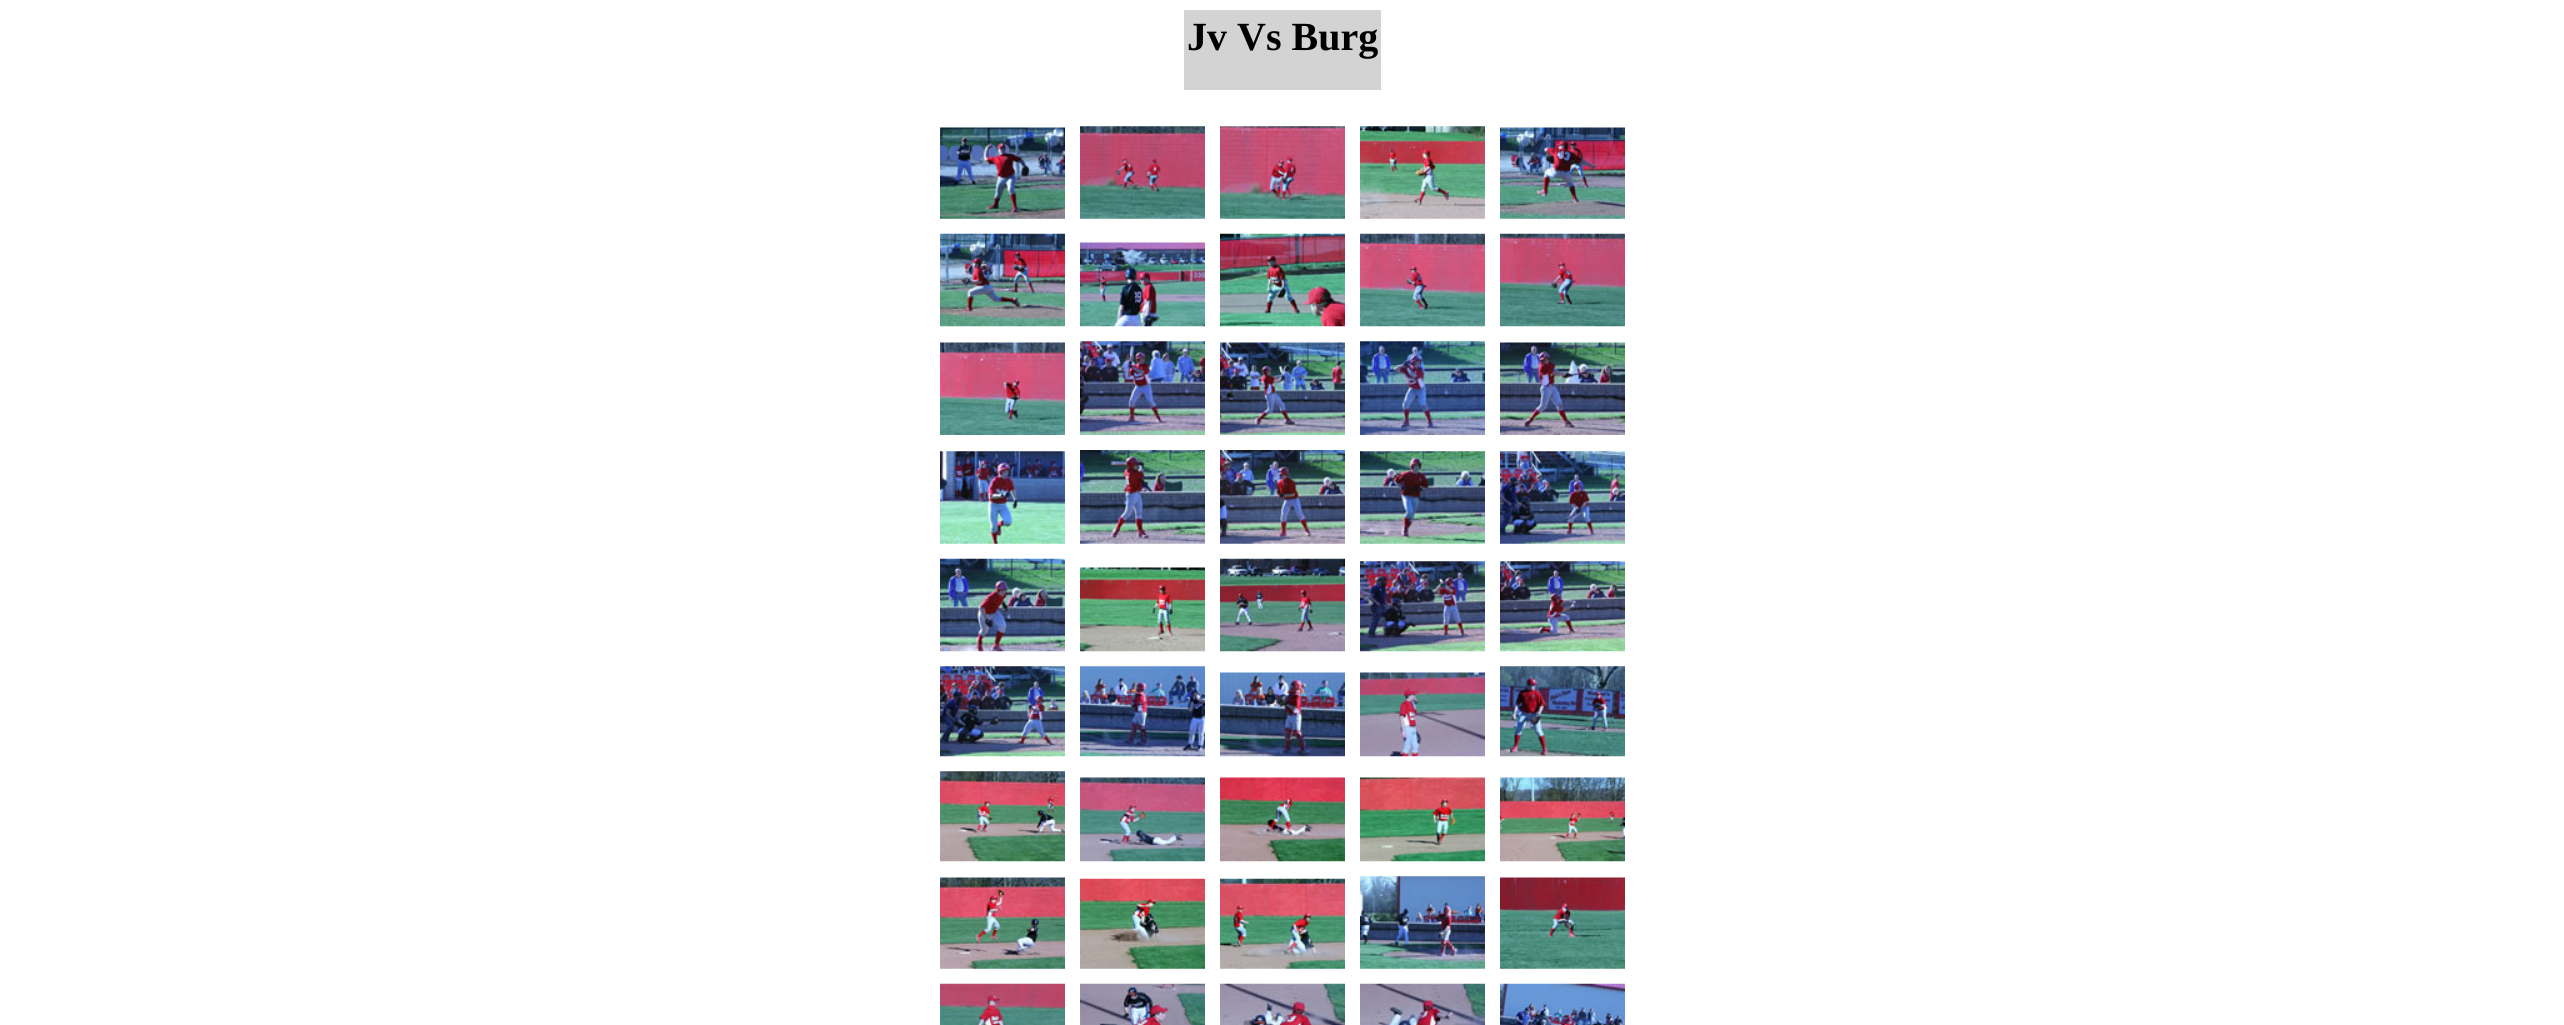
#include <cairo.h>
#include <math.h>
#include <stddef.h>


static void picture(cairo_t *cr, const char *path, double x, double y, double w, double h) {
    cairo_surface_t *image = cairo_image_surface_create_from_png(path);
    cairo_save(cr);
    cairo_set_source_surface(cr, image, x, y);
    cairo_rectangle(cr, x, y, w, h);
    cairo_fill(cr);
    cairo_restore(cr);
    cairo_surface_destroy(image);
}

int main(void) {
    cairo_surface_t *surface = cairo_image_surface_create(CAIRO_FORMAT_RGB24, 2564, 1025);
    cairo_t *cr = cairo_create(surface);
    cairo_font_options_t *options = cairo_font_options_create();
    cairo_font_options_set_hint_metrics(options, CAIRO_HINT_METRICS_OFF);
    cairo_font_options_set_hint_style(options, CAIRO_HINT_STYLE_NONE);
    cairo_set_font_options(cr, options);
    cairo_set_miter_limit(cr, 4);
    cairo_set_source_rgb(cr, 1, 1, 1);
    cairo_paint(cr);
    cairo_set_source_rgb(cr, 0.827, 0.827, 0.827);
    cairo_rectangle(cr, 1184, 10, 197, 80);
    cairo_fill(cr);
    cairo_select_font_face(cr, "Liberation Serif", CAIRO_FONT_SLANT_NORMAL, CAIRO_FONT_WEIGHT_BOLD);
    cairo_set_font_size(cr, 40);
    cairo_set_source_rgb(cr, 0, 0, 0);
    cairo_move_to(cr, 1187, 50);
    cairo_show_text(cr, "Jv Vs Burg");
    picture(cr, "img1.png", 940, 127, 125, 92);
    picture(cr, "img2.png", 1080, 126, 125, 93);
    picture(cr, "img3.png", 1220, 126, 125, 93);
    picture(cr, "img4.png", 1360, 126, 125, 93);
    picture(cr, "img5.png", 1500, 127, 125, 92);
    picture(cr, "img6.png", 940, 233, 125, 94);
    picture(cr, "img7.png", 1080, 242, 125, 85);
    picture(cr, "img8.png", 1220, 233, 125, 94);
    picture(cr, "img9.png", 1360, 233, 125, 94);
    picture(cr, "img10.png", 1500, 233, 125, 94);
    picture(cr, "img11.png", 940, 342, 125, 93);
    picture(cr, "img12.png", 1080, 341, 125, 94);
    picture(cr, "img13.png", 1220, 342, 125, 93);
    picture(cr, "img14.png", 1360, 341, 125, 94);
    picture(cr, "img15.png", 1500, 342, 125, 93);
    picture(cr, "img16.png", 940, 451, 125, 93);
    picture(cr, "img17.png", 1080, 450, 125, 94);
    picture(cr, "img18.png", 1220, 450, 125, 94);
    picture(cr, "img19.png", 1360, 451, 125, 93);
    picture(cr, "img20.png", 1500, 451, 125, 93);
    picture(cr, "img21.png", 940, 558, 125, 94);
    picture(cr, "img22.png", 1080, 567, 125, 85);
    picture(cr, "img23.png", 1220, 558, 125, 94);
    picture(cr, "img24.png", 1360, 561, 125, 91);
    picture(cr, "img25.png", 1500, 561, 125, 91);
    picture(cr, "img26.png", 940, 666, 125, 91);
    picture(cr, "img27.png", 1080, 666, 125, 91);
    picture(cr, "img28.png", 1220, 672, 125, 85);
    picture(cr, "img29.png", 1360, 672, 125, 85);
    picture(cr, "img30.png", 1500, 666, 125, 91);
    picture(cr, "img31.png", 940, 771, 125, 91);
    picture(cr, "img32.png", 1080, 777, 125, 85);
    picture(cr, "img33.png", 1220, 777, 125, 85);
    picture(cr, "img34.png", 1360, 777, 125, 85);
    picture(cr, "img35.png", 1500, 777, 125, 85);
    picture(cr, "img36.png", 940, 877, 125, 92);
    picture(cr, "img37.png", 1080, 878, 125, 91);
    picture(cr, "img38.png", 1220, 878, 125, 91);
    picture(cr, "img39.png", 1360, 876, 125, 93);
    picture(cr, "img40.png", 1500, 877, 125, 92);
    picture(cr, "img41.png", 940, 983, 125, 42);
    picture(cr, "img42.png", 1080, 983, 125, 42);
    picture(cr, "img43.png", 1220, 983, 125, 42);
    picture(cr, "img44.png", 1360, 983, 125, 42);
    picture(cr, "img45.png", 1500, 983, 125, 42);
    cairo_surface_write_to_png(surface, "page.png");
    cairo_font_options_destroy(options);
    cairo_destroy(cr);
    cairo_surface_destroy(surface);
    return 0;
}
